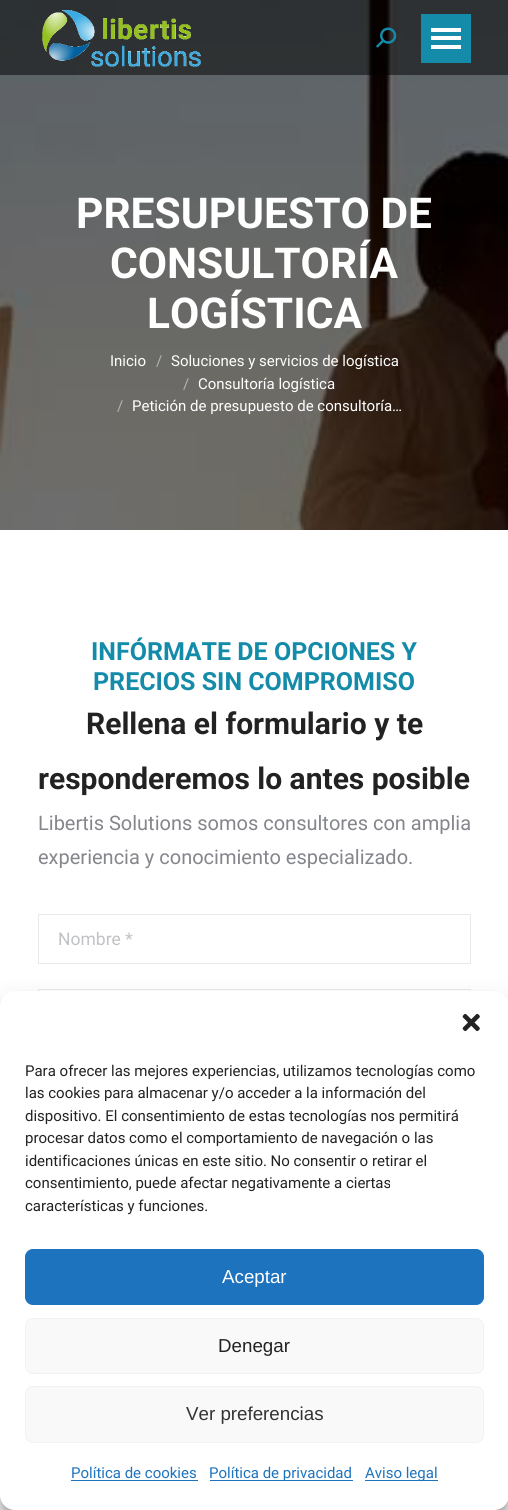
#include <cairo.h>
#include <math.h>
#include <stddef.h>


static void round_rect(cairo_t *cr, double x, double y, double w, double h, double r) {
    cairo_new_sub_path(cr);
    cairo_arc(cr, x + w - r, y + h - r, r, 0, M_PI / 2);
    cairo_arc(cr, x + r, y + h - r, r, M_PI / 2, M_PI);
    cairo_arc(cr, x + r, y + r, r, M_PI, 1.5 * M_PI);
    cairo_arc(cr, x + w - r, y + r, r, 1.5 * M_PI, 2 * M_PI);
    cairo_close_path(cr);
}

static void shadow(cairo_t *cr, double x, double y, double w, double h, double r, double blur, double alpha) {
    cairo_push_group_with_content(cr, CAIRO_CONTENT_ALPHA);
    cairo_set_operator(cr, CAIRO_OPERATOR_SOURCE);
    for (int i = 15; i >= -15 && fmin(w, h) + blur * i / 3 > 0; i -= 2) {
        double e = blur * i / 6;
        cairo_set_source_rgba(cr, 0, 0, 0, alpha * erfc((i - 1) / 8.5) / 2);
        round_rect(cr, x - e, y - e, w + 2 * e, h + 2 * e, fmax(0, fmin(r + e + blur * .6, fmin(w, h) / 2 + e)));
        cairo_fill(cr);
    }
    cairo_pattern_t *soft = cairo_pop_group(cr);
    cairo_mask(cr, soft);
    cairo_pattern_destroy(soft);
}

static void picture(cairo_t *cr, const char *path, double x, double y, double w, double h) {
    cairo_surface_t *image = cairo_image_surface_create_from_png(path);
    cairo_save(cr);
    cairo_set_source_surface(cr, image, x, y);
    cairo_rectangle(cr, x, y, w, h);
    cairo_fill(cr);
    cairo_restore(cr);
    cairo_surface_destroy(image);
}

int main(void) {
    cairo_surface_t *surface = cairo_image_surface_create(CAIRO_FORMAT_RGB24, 508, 1510);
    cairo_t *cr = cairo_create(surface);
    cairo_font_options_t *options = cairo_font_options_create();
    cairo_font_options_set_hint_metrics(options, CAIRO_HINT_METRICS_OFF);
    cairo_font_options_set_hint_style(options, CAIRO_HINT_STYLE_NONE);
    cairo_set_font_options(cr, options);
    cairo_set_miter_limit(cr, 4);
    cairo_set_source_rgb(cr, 1, 1, 1);
    cairo_paint(cr);
    picture(cr, "img3.png", 0, 0, 508, 530);
    cairo_set_source_rgba(cr, 0, 0, 0, 0.5);
    cairo_rectangle(cr, 0, 0, 508, 75);
    cairo_fill(cr);
    picture(cr, "img1.png", 42, 10, 159, 57);
    picture(cr, "img2.png", 376, 27, 21, 21);
    cairo_set_source_rgb(cr, 0.078, 0.545, 0.663);
    cairo_rectangle(cr, 421, 14, 50, 49);
    cairo_fill(cr);
    cairo_set_source_rgb(cr, 1, 1, 1);
    cairo_rectangle(cr, 431, 28, 30, 4);
    cairo_fill(cr);
    cairo_rectangle(cr, 431, 36, 30, 4);
    cairo_fill(cr);
    cairo_rectangle(cr, 431, 45, 30, 4);
    cairo_fill(cr);
    cairo_select_font_face(cr, "Roboto", CAIRO_FONT_SLANT_NORMAL, CAIRO_FONT_WEIGHT_BOLD);
    cairo_set_font_size(cr, 42.5);
    cairo_move_to(cr, 76, 228);
    cairo_show_text(cr, "PRESUPUESTO DE");
    cairo_move_to(cr, 110, 278);
    cairo_show_text(cr, "CONSULTORÍA");
    cairo_move_to(cr, 147, 328);
    cairo_show_text(cr, "LOGÍSTICA");
    cairo_select_font_face(cr, "Roboto", CAIRO_FONT_SLANT_NORMAL, CAIRO_FONT_WEIGHT_NORMAL);
    cairo_set_font_size(cr, 15);
    cairo_move_to(cr, 110, 366);
    cairo_show_text(cr, "Inicio");
    cairo_set_source_rgb(cr, 0.706, 0.71, 0.702);
    cairo_move_to(cr, 156, 366);
    cairo_show_text(cr, "/");
    cairo_set_source_rgb(cr, 1, 1, 1);
    cairo_move_to(cr, 171, 366);
    cairo_show_text(cr, "Soluciones y servicios de logística");
    cairo_set_source_rgb(cr, 0.706, 0.71, 0.702);
    cairo_move_to(cr, 183, 389);
    cairo_show_text(cr, "/");
    cairo_set_source_rgb(cr, 1, 1, 1);
    cairo_move_to(cr, 198, 389);
    cairo_show_text(cr, "Consultoría logística");
    cairo_set_source_rgb(cr, 0.706, 0.71, 0.702);
    cairo_move_to(cr, 117, 411);
    cairo_show_text(cr, "/");
    cairo_set_source_rgb(cr, 1, 1, 1);
    cairo_move_to(cr, 132, 411);
    cairo_show_text(cr, "Petición de presupuesto de consultoría…");
    cairo_select_font_face(cr, "Roboto", CAIRO_FONT_SLANT_NORMAL, CAIRO_FONT_WEIGHT_BOLD);
    cairo_set_font_size(cr, 25);
    cairo_set_source_rgb(cr, 0.078, 0.545, 0.663);
    cairo_move_to(cr, 91, 660);
    cairo_show_text(cr, "INFÓRMATE DE OPCIONES Y");
    cairo_move_to(cr, 93, 690);
    cairo_show_text(cr, "PRECIOS SIN COMPROMISO");
    cairo_set_font_size(cr, 30);
    cairo_set_source_rgb(cr, 0.133, 0.133, 0.133);
    cairo_move_to(cr, 86, 734);
    cairo_show_text(cr, "Rellena el formulario y te");
    cairo_move_to(cr, 38, 789);
    cairo_show_text(cr, "responderemos lo antes posible");
    cairo_select_font_face(cr, "Roboto", CAIRO_FONT_SLANT_NORMAL, CAIRO_FONT_WEIGHT_NORMAL);
    cairo_set_font_size(cr, 20);
    cairo_set_source_rgb(cr, 0.522, 0.525, 0.549);
    cairo_move_to(cr, 38, 830);
    cairo_show_text(cr, "Libertis Solutions somos consultores con amplia");
    cairo_move_to(cr, 38, 864);
    cairo_show_text(cr, "experiencia y conocimiento especializado.");
    cairo_rectangle(cr, 38.5, 914.5, 432, 49);
    cairo_set_source_rgb(cr, 0.914, 0.914, 0.914);
    cairo_set_line_width(cr, 1);
    cairo_stroke(cr);
    cairo_set_font_size(cr, 17.5);
    cairo_set_source_rgb(cr, 0.757, 0.761, 0.773);
    cairo_move_to(cr, 58, 945);
    cairo_show_text(cr, "Nombre *");
    cairo_rectangle(cr, 38.5, 989.5, 432, 49);
    cairo_set_source_rgb(cr, 0.914, 0.914, 0.914);
    cairo_stroke(cr);
    cairo_set_source_rgb(cr, 0, 0, 0);
    shadow(cr, 0, 999, 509, 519, 15, 4, 0.23);
    shadow(cr, 0, 1004, 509, 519, 15, 12.5, 0.19);
    cairo_set_source_rgb(cr, 1, 1, 1);
    round_rect(cr, 0, 991, 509, 519, 15);
    cairo_fill(cr);
    picture(cr, "img4.png", 462, 1013, 18, 19);
    cairo_set_font_size(cr, 15);
    cairo_set_source_rgb(cr, 0.133, 0.133, 0.133);
    cairo_move_to(cr, 25, 1076);
    cairo_show_text(cr, "Para ofrecer las mejores experiencias, utilizamos tecnologías como");
    cairo_move_to(cr, 25, 1098);
    cairo_show_text(cr, "las cookies para almacenar y/o acceder a la información del");
    cairo_move_to(cr, 25, 1121);
    cairo_show_text(cr, "dispositivo. El consentimiento de estas tecnologías nos permitirá");
    cairo_move_to(cr, 25, 1143);
    cairo_show_text(cr, "procesar datos como el comportamiento de navegación o las");
    cairo_move_to(cr, 25, 1166);
    cairo_show_text(cr, "identificaciones únicas en este sitio. No consentir o retirar el");
    cairo_move_to(cr, 25, 1188);
    cairo_show_text(cr, "consentimiento, puede afectar negativamente a ciertas");
    cairo_move_to(cr, 25, 1211);
    cairo_show_text(cr, "características y funciones.");
    cairo_set_source_rgb(cr, 0.118, 0.451, 0.745);
    round_rect(cr, 25.5, 1249.5, 458, 55, 7.5);
    cairo_fill_preserve(cr);
    cairo_stroke(cr);
    cairo_select_font_face(cr, "Liberation Sans", CAIRO_FONT_SLANT_NORMAL, CAIRO_FONT_WEIGHT_NORMAL);
    cairo_set_font_size(cr, 18.75);
    cairo_set_source_rgb(cr, 1, 1, 1);
    cairo_move_to(cr, 222, 1283);
    cairo_show_text(cr, "Aceptar");
    cairo_set_source_rgb(cr, 0.976, 0.976, 0.976);
    round_rect(cr, 25.5, 1318.5, 458, 55, 7.5);
    cairo_fill_preserve(cr);
    cairo_set_source_rgb(cr, 0.949, 0.949, 0.949);
    cairo_stroke(cr);
    cairo_set_source_rgb(cr, 0.133, 0.133, 0.133);
    cairo_move_to(cr, 218, 1352);
    cairo_show_text(cr, "Denegar");
    cairo_set_source_rgb(cr, 0.976, 0.976, 0.976);
    round_rect(cr, 25.5, 1386.5, 458, 56, 7.5);
    cairo_fill_preserve(cr);
    cairo_set_source_rgb(cr, 0.949, 0.949, 0.949);
    cairo_stroke(cr);
    cairo_set_source_rgb(cr, 0.2, 0.2, 0.2);
    cairo_move_to(cr, 186, 1420);
    cairo_show_text(cr, "Ver preferencias");
    cairo_select_font_face(cr, "Roboto", CAIRO_FONT_SLANT_NORMAL, CAIRO_FONT_WEIGHT_NORMAL);
    cairo_set_font_size(cr, 15);
    cairo_set_source_rgb(cr, 0.118, 0.451, 0.745);
    cairo_move_to(cr, 71, 1478);
    cairo_show_text(cr, "Política de cookies");
    cairo_rectangle(cr, 71, 1480, 127, 1);
    cairo_fill(cr);
    cairo_rectangle(cr, 210, 1480, 143, 1);
    cairo_fill(cr);
    cairo_move_to(cr, 209, 1478);
    cairo_show_text(cr, "Política de privacidad");
    cairo_rectangle(cr, 365, 1480, 73, 1);
    cairo_fill(cr);
    cairo_move_to(cr, 365, 1478);
    cairo_show_text(cr, "Aviso legal");
    cairo_surface_write_to_png(surface, "page.png");
    cairo_font_options_destroy(options);
    cairo_destroy(cr);
    cairo_surface_destroy(surface);
    return 0;
}
